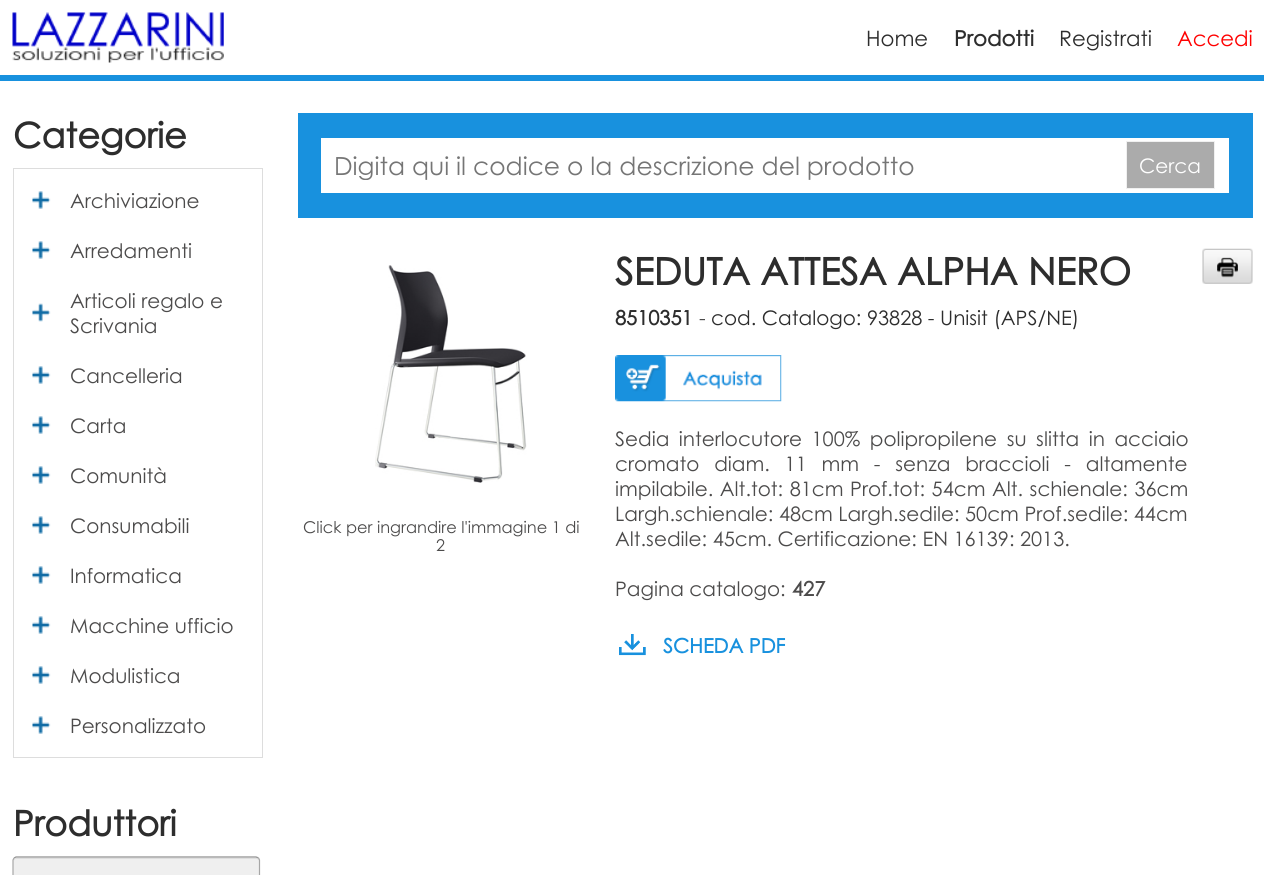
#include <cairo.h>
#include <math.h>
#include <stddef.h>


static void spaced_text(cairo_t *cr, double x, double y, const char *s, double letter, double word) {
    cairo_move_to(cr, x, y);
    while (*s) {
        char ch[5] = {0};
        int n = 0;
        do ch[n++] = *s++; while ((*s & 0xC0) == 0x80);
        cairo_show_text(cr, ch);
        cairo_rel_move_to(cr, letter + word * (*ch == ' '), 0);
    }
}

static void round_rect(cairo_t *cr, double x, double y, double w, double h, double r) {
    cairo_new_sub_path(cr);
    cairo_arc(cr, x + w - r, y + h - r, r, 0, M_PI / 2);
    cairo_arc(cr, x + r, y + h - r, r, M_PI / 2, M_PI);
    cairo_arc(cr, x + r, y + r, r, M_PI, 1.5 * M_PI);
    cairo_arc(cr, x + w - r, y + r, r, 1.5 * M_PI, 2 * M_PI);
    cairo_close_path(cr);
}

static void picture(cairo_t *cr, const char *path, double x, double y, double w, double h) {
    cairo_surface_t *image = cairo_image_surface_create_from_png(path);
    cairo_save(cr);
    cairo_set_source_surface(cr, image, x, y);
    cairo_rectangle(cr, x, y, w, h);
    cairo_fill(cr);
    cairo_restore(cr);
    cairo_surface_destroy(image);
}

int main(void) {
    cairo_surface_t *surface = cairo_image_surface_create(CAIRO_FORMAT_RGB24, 1264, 875);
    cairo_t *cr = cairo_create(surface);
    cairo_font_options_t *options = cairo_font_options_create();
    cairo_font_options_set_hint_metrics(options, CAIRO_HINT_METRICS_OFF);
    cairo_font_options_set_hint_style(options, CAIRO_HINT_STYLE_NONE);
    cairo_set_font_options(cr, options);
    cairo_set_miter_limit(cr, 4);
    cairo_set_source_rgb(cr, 1, 1, 1);
    cairo_paint(cr);
    picture(cr, "img1.png", 12, 12, 212, 51);
    cairo_select_font_face(cr, "Century Gothic", CAIRO_FONT_SLANT_NORMAL, CAIRO_FONT_WEIGHT_NORMAL);
    cairo_set_font_size(cr, 21.25);
    cairo_set_source_rgb(cr, 0.176, 0.176, 0.176);
    cairo_move_to(cr, 866, 46);
    cairo_show_text(cr, "Home");
    cairo_select_font_face(cr, "Century Gothic", CAIRO_FONT_SLANT_NORMAL, CAIRO_FONT_WEIGHT_BOLD);
    cairo_move_to(cr, 954, 46);
    cairo_show_text(cr, "Prodotti");
    cairo_select_font_face(cr, "Century Gothic", CAIRO_FONT_SLANT_NORMAL, CAIRO_FONT_WEIGHT_NORMAL);
    cairo_move_to(cr, 1059, 46);
    cairo_show_text(cr, "Registrati");
    cairo_set_source_rgb(cr, 1, 0, 0);
    cairo_move_to(cr, 1177, 46);
    cairo_show_text(cr, "Accedi");
    cairo_set_source_rgb(cr, 0.094, 0.569, 0.871);
    cairo_rectangle(cr, 0, 75, 1264, 6);
    cairo_fill(cr);
    cairo_select_font_face(cr, "Century Gothic", CAIRO_FONT_SLANT_NORMAL, CAIRO_FONT_WEIGHT_BOLD);
    cairo_set_font_size(cr, 35);
    cairo_set_source_rgb(cr, 0.176, 0.176, 0.176);
    cairo_move_to(cr, 13, 148);
    cairo_show_text(cr, "Categorie");
    cairo_rectangle(cr, 13.5, 168.5, 249, 589);
    cairo_set_source_rgb(cr, 0.867, 0.867, 0.867);
    cairo_set_line_width(cr, 1);
    cairo_stroke(cr);
    picture(cr, "img2.png", 32, 191, 19, 18);
    cairo_select_font_face(cr, "Century Gothic", CAIRO_FONT_SLANT_NORMAL, CAIRO_FONT_WEIGHT_NORMAL);
    cairo_set_font_size(cr, 20);
    cairo_set_source_rgb(cr, 0.298, 0.294, 0.294);
    cairo_move_to(cr, 70, 208);
    cairo_show_text(cr, "Archiviazione");
    picture(cr, "img2.png", 32, 241, 19, 18);
    cairo_move_to(cr, 70, 258);
    cairo_show_text(cr, "Arredamenti");
    picture(cr, "img3.png", 32, 303, 19, 19);
    cairo_move_to(cr, 70, 308);
    cairo_show_text(cr, "Articoli regalo e");
    cairo_move_to(cr, 70, 333);
    cairo_show_text(cr, "Scrivania");
    picture(cr, "img2.png", 32, 366, 19, 18);
    cairo_move_to(cr, 70, 383);
    cairo_show_text(cr, "Cancelleria");
    picture(cr, "img2.png", 32, 416, 19, 18);
    cairo_move_to(cr, 70, 433);
    cairo_show_text(cr, "Carta");
    picture(cr, "img2.png", 32, 466, 19, 18);
    cairo_move_to(cr, 70, 483);
    cairo_show_text(cr, "Comunità");
    picture(cr, "img2.png", 32, 516, 19, 18);
    cairo_move_to(cr, 70, 533);
    cairo_show_text(cr, "Consumabili");
    picture(cr, "img2.png", 32, 566, 19, 18);
    cairo_move_to(cr, 70, 583);
    cairo_show_text(cr, "Informatica");
    picture(cr, "img2.png", 32, 616, 19, 18);
    cairo_move_to(cr, 70, 633);
    cairo_show_text(cr, "Macchine ufficio");
    picture(cr, "img2.png", 32, 666, 19, 18);
    cairo_move_to(cr, 70, 683);
    cairo_show_text(cr, "Modulistica");
    picture(cr, "img2.png", 32, 716, 19, 18);
    cairo_move_to(cr, 70, 733);
    cairo_show_text(cr, "Personalizzato");
    cairo_select_font_face(cr, "Century Gothic", CAIRO_FONT_SLANT_NORMAL, CAIRO_FONT_WEIGHT_BOLD);
    cairo_set_font_size(cr, 35);
    cairo_set_source_rgb(cr, 0.176, 0.176, 0.176);
    cairo_move_to(cr, 13, 836);
    cairo_show_text(cr, "Produttori");
    cairo_set_source_rgb(cr, 0.937, 0.937, 0.937);
    round_rect(cr, 13, 856, 247, 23, 4);
    cairo_fill(cr);
    cairo_set_source_rgb(cr, 0.871, 0.871, 0.871);
    cairo_new_path(cr);
    cairo_move_to(cr, 16, 859);
    cairo_line_to(cr, 256, 859);
    cairo_curve_to(cr, 258, 859, 259, 860, 259, 861);
    cairo_curve_to(cr, 259, 859, 258, 858, 256, 858);
    cairo_line_to(cr, 16, 858);
    cairo_line_to(cr, 14, 859);
    cairo_line_to(cr, 14, 861);
    cairo_curve_to(cr, 14, 860, 15, 859, 16, 859);
    cairo_close_path(cr);
    cairo_fill(cr);
    cairo_new_path(cr);
    cairo_move_to(cr, 14, 858);
    cairo_line_to(cr, 16, 857);
    cairo_line_to(cr, 256, 857);
    cairo_line_to(cr, 258.5, 858);
    cairo_set_source_rgb(cr, 0.58, 0.58, 0.58);
    cairo_set_line_width(cr, 1.2);
    cairo_stroke(cr);
    cairo_new_path(cr);
    cairo_move_to(cr, 258.5, 858);
    cairo_line_to(cr, 259.5, 860);
    cairo_line_to(cr, 259.5, 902.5);
    cairo_line_to(cr, 258.5, 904.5);
    cairo_line_to(cr, 256, 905.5);
    cairo_line_to(cr, 16, 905.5);
    cairo_line_to(cr, 14, 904.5);
    cairo_line_to(cr, 13, 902.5);
    cairo_line_to(cr, 13, 860);
    cairo_line_to(cr, 14, 858);
    cairo_set_source_rgb(cr, 0.651, 0.651, 0.651);
    cairo_stroke(cr);
    cairo_set_source_rgb(cr, 0.094, 0.569, 0.871);
    cairo_rectangle(cr, 298, 113, 955, 105);
    cairo_fill(cr);
    cairo_set_source_rgb(cr, 1, 1, 1);
    cairo_rectangle(cr, 321, 138, 908, 55);
    cairo_fill(cr);
    cairo_save(cr);
    cairo_rectangle(cr, 334, 150, 770, 30);
    cairo_clip(cr);
    cairo_select_font_face(cr, "Century Gothic", CAIRO_FONT_SLANT_NORMAL, CAIRO_FONT_WEIGHT_NORMAL);
    cairo_set_font_size(cr, 25);
    cairo_set_source_rgb(cr, 0.459, 0.459, 0.459);
    cairo_move_to(cr, 334, 175);
    cairo_show_text(cr, "Digita qui il codice o la descrizione del prodotto");
    cairo_restore(cr);
    cairo_set_source_rgb(cr, 0.671, 0.671, 0.671);
    cairo_rectangle(cr, 1126.5, 141.5, 88, 47);
    cairo_fill_preserve(cr);
    cairo_set_source_rgb(cr, 0.941, 0.941, 0.941);
    cairo_set_line_width(cr, 1);
    cairo_stroke(cr);
    cairo_select_font_face(cr, "Century Gothic", CAIRO_FONT_SLANT_NORMAL, CAIRO_FONT_WEIGHT_NORMAL);
    cairo_set_font_size(cr, 20);
    cairo_set_source_rgb(cr, 1, 1, 1);
    cairo_move_to(cr, 1139, 173);
    cairo_show_text(cr, "Cerca");
    picture(cr, "img4.png", 375, 265, 152, 218);
    cairo_set_font_size(cr, 16.25);
    cairo_set_source_rgb(cr, 0.298, 0.294, 0.294);
    cairo_move_to(cr, 303, 533);
    cairo_show_text(cr, "Click per ingrandire l'immagine 1 di");
    cairo_move_to(cr, 436, 551);
    cairo_show_text(cr, "2");
    cairo_select_font_face(cr, "Century Gothic", CAIRO_FONT_SLANT_NORMAL, CAIRO_FONT_WEIGHT_BOLD);
    cairo_set_font_size(cr, 37.5);
    cairo_set_source_rgb(cr, 0.176, 0.176, 0.176);
    cairo_move_to(cr, 615, 285);
    cairo_show_text(cr, "SEDUTA ATTESA ALPHA NERO");
    cairo_set_font_size(cr, 20);
    cairo_move_to(cr, 615, 325);
    cairo_show_text(cr, "8510351");
    cairo_select_font_face(cr, "Century Gothic", CAIRO_FONT_SLANT_NORMAL, CAIRO_FONT_WEIGHT_NORMAL);
    cairo_set_source_rgb(cr, 0.298, 0.294, 0.294);
    cairo_move_to(cr, 699, 325);
    cairo_show_text(cr, "-");
    cairo_set_source_rgb(cr, 0.176, 0.176, 0.176);
    cairo_move_to(cr, 711, 325);
    cairo_show_text(cr, "cod. Catalogo: 93828 - Unisit (APS/NE)");
    picture(cr, "img5.png", 615, 355, 167, 47);
    cairo_set_source_rgb(cr, 0.298, 0.294, 0.294);
    spaced_text(cr, 615, 446, "Sedia interlocutore 100% polipropilene su slitta in acciaio", 0, 4);
    spaced_text(cr, 615, 471, "cromato diam. 11 mm - senza braccioli - altamente", 0, 9.25);
    spaced_text(cr, 615, 496, "impilabile. Alt.tot: 81cm Prof.tot: 54cm Alt. schienale: 36cm", 0, 1);
    cairo_move_to(cr, 615, 521);
    cairo_show_text(cr, "Largh.schienale: 48cm Largh.sedile: 50cm Prof.sedile: 44cm");
    cairo_move_to(cr, 615, 546);
    cairo_show_text(cr, "Alt.sedile: 45cm. Certificazione: EN 16139: 2013.");
    cairo_move_to(cr, 615, 596);
    cairo_show_text(cr, "Pagina catalogo:");
    cairo_select_font_face(cr, "Century Gothic", CAIRO_FONT_SLANT_NORMAL, CAIRO_FONT_WEIGHT_BOLD);
    cairo_move_to(cr, 792, 596);
    cairo_show_text(cr, "427");
    picture(cr, "img6.png", 619, 634, 27, 22);
    cairo_set_source_rgb(cr, 0.094, 0.569, 0.871);
    cairo_move_to(cr, 663, 653);
    cairo_show_text(cr, "SCHEDA PDF");
    picture(cr, "img7.png", 1202, 248, 51, 36);
    cairo_surface_write_to_png(surface, "page.png");
    cairo_font_options_destroy(options);
    cairo_destroy(cr);
    cairo_surface_destroy(surface);
    return 0;
}
